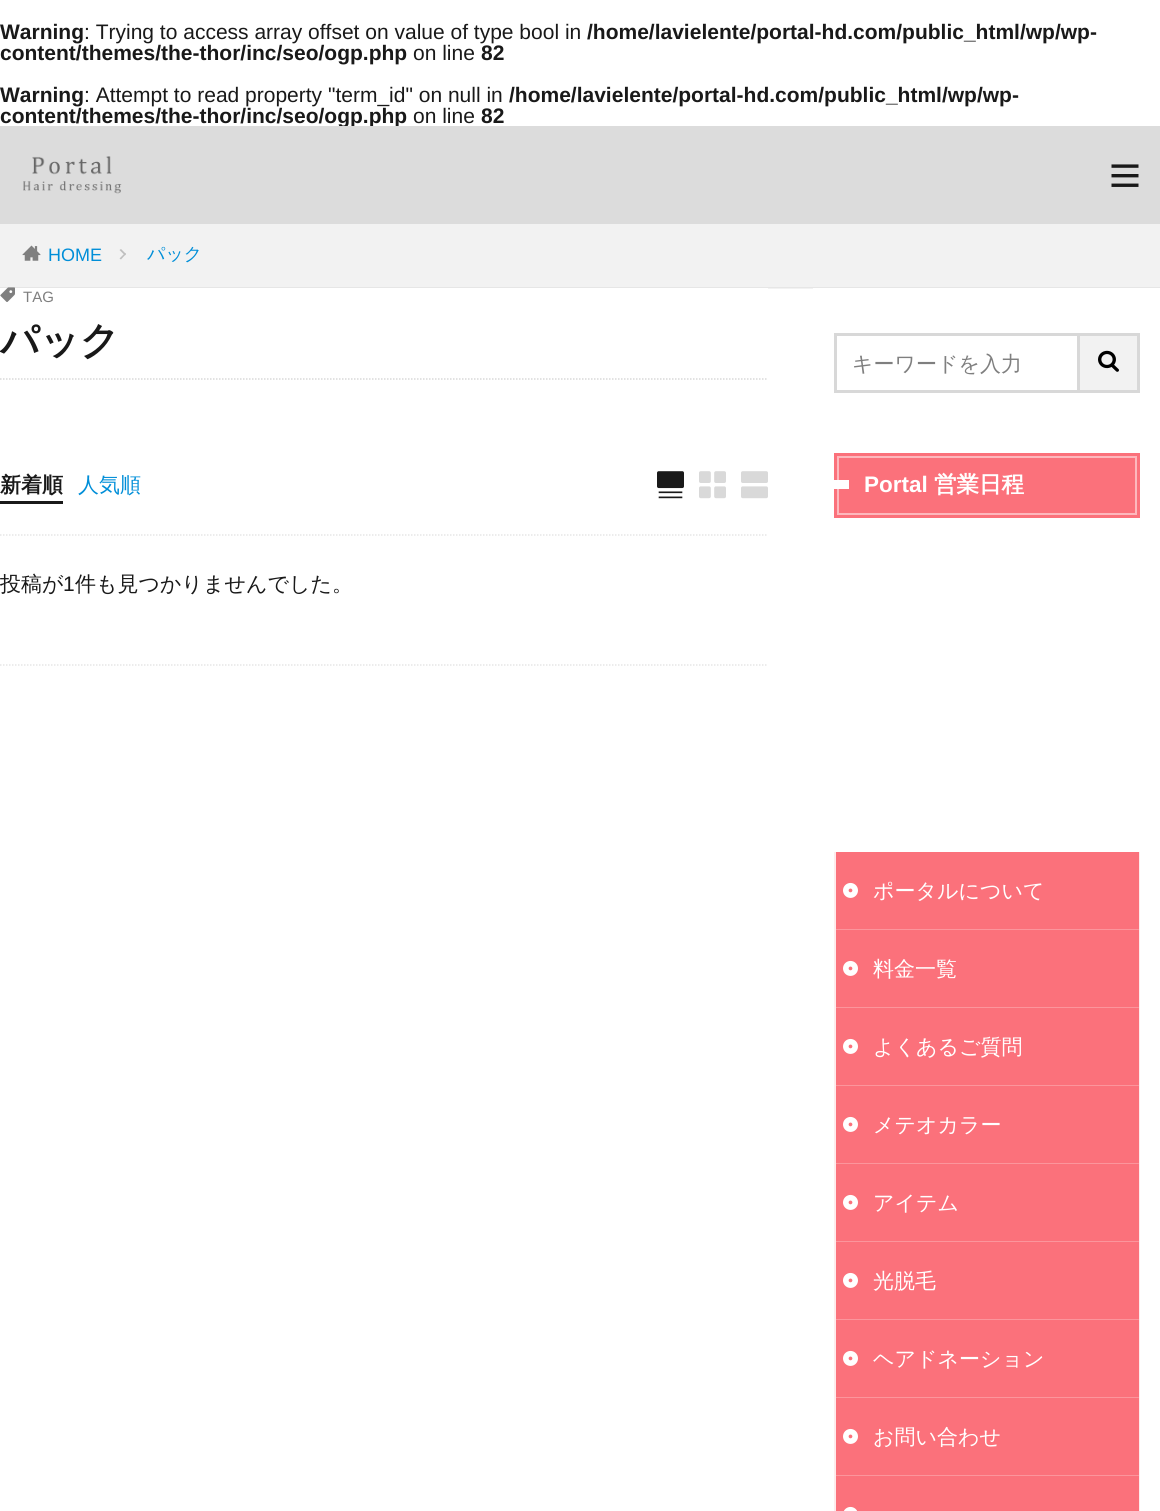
#include <cairo.h>
#include <math.h>
#include <stddef.h>


static void picture(cairo_t *cr, const char *path, double x, double y, double w, double h) {
    cairo_surface_t *image = cairo_image_surface_create_from_png(path);
    cairo_save(cr);
    cairo_set_source_surface(cr, image, x, y);
    cairo_rectangle(cr, x, y, w, h);
    cairo_fill(cr);
    cairo_restore(cr);
    cairo_surface_destroy(image);
}

int main(void) {
    cairo_surface_t *surface = cairo_image_surface_create(CAIRO_FORMAT_RGB24, 1160, 1511);
    cairo_t *cr = cairo_create(surface);
    cairo_font_options_t *options = cairo_font_options_create();
    cairo_font_options_set_hint_metrics(options, CAIRO_HINT_METRICS_OFF);
    cairo_font_options_set_hint_style(options, CAIRO_HINT_STYLE_NONE);
    cairo_set_font_options(cr, options);
    cairo_set_miter_limit(cr, 4);
    cairo_set_source_rgb(cr, 1, 1, 1);
    cairo_paint(cr);
    cairo_set_source_rgb(cr, 0.949, 0.949, 0.949);
    cairo_rectangle(cr, 768, 288, 45, 1);
    cairo_fill(cr);
    cairo_select_font_face(cr, "Liberation Sans", CAIRO_FONT_SLANT_NORMAL, CAIRO_FONT_WEIGHT_BOLD);
    cairo_set_font_size(cr, 21);
    cairo_set_source_rgb(cr, 0.098, 0.098, 0.098);
    cairo_move_to(cr, 0, 39);
    cairo_show_text(cr, "Warning");
    cairo_select_font_face(cr, "Liberation Sans", CAIRO_FONT_SLANT_NORMAL, CAIRO_FONT_WEIGHT_NORMAL);
    cairo_move_to(cr, 84, 39);
    cairo_show_text(cr, ": Trying to access array offset on value of type bool in");
    cairo_select_font_face(cr, "Liberation Sans", CAIRO_FONT_SLANT_NORMAL, CAIRO_FONT_WEIGHT_BOLD);
    cairo_move_to(cr, 587, 39);
    cairo_show_text(cr, "/home/lavielente/portal-hd.com/public_html/wp/wp-");
    cairo_move_to(cr, 0, 60);
    cairo_show_text(cr, "content/themes/the-thor/inc/seo/ogp.php");
    cairo_select_font_face(cr, "Liberation Sans", CAIRO_FONT_SLANT_NORMAL, CAIRO_FONT_WEIGHT_NORMAL);
    cairo_move_to(cr, 413, 60);
    cairo_show_text(cr, "on line");
    cairo_select_font_face(cr, "Liberation Sans", CAIRO_FONT_SLANT_NORMAL, CAIRO_FONT_WEIGHT_BOLD);
    cairo_move_to(cr, 481, 60);
    cairo_show_text(cr, "82");
    cairo_move_to(cr, 0, 102);
    cairo_show_text(cr, "Warning");
    cairo_select_font_face(cr, "Liberation Sans", CAIRO_FONT_SLANT_NORMAL, CAIRO_FONT_WEIGHT_NORMAL);
    cairo_move_to(cr, 84, 102);
    cairo_show_text(cr, ": Attempt to read property \"term_id\" on null in");
    cairo_select_font_face(cr, "Liberation Sans", CAIRO_FONT_SLANT_NORMAL, CAIRO_FONT_WEIGHT_BOLD);
    cairo_move_to(cr, 509, 102);
    cairo_show_text(cr, "/home/lavielente/portal-hd.com/public_html/wp/wp-");
    cairo_move_to(cr, 0, 123);
    cairo_show_text(cr, "content/themes/the-thor/inc/seo/ogp.php");
    cairo_select_font_face(cr, "Liberation Sans", CAIRO_FONT_SLANT_NORMAL, CAIRO_FONT_WEIGHT_NORMAL);
    cairo_move_to(cr, 413, 123);
    cairo_show_text(cr, "on line");
    cairo_select_font_face(cr, "Liberation Sans", CAIRO_FONT_SLANT_NORMAL, CAIRO_FONT_WEIGHT_BOLD);
    cairo_move_to(cr, 481, 123);
    cairo_show_text(cr, "82");
    cairo_set_source_rgb(cr, 0.863, 0.863, 0.863);
    cairo_rectangle(cr, 0, 126, 1160, 98);
    cairo_fill(cr);
    picture(cr, "img1.png", 23, 156, 99, 38);
    picture(cr, "img2.png", 1111, 164, 28, 23);
    cairo_set_source_rgb(cr, 0.949, 0.949, 0.949);
    cairo_rectangle(cr, 0, 224, 1160, 63);
    cairo_fill(cr);
    cairo_set_source_rgb(cr, 0.902, 0.902, 0.902);
    cairo_rectangle(cr, 0, 287, 1160, 1);
    cairo_fill(cr);
    picture(cr, "img3.png", 22, 245, 19, 16);
    cairo_select_font_face(cr, "Liberation Sans", CAIRO_FONT_SLANT_NORMAL, CAIRO_FONT_WEIGHT_NORMAL);
    cairo_set_font_size(cr, 18);
    cairo_set_source_rgb(cr, 0, 0.557, 0.847);
    cairo_move_to(cr, 48, 261);
    cairo_show_text(cr, "HOME");
    cairo_set_source_rgb(cr, 0.749, 0.749, 0.749);
    cairo_new_path(cr);
    cairo_move_to(cr, 121, 249);
    cairo_line_to(cr, 126, 254);
    cairo_line_to(cr, 125, 255.5);
    cairo_line_to(cr, 119.5, 250);
    cairo_close_path(cr);
    cairo_fill(cr);
    cairo_new_path(cr);
    cairo_move_to(cr, 125, 253);
    cairo_line_to(cr, 126, 254);
    cairo_line_to(cr, 121, 259.5);
    cairo_line_to(cr, 119.5, 258.5);
    cairo_close_path(cr);
    cairo_fill(cr);
    cairo_select_font_face(cr, "WenQuanYi Zen Hei Medium", CAIRO_FONT_SLANT_NORMAL, CAIRO_FONT_WEIGHT_NORMAL);
    cairo_set_source_rgb(cr, 0, 0.557, 0.847);
    cairo_move_to(cr, 147, 260);
    cairo_show_text(cr, "パック");
    picture(cr, "img4.png", 0, 287, 15, 15);
    cairo_select_font_face(cr, "Liberation Sans", CAIRO_FONT_SLANT_NORMAL, CAIRO_FONT_WEIGHT_NORMAL);
    cairo_set_font_size(cr, 15);
    cairo_set_source_rgb(cr, 0.498, 0.498, 0.498);
    cairo_move_to(cr, 23, 302);
    cairo_show_text(cr, "TAG");
    cairo_new_path(cr);
    cairo_move_to(cr, 0, 379);
    cairo_line_to(cr, 768, 379);
    cairo_set_source_rgb(cr, 0.847, 0.847, 0.847);
    cairo_set_line_width(cr, 1.5);
    cairo_set_dash(cr, (double[]){1.5, 1.5}, 2, 0);
    cairo_stroke(cr);
    cairo_select_font_face(cr, "WenQuanYi Zen Hei", CAIRO_FONT_SLANT_NORMAL, CAIRO_FONT_WEIGHT_BOLD);
    cairo_set_font_size(cr, 39);
    cairo_set_source_rgb(cr, 0.098, 0.098, 0.098);
    cairo_move_to(cr, 0, 354);
    cairo_show_text(cr, "パック");
    cairo_new_path(cr);
    cairo_move_to(cr, 0, 535);
    cairo_line_to(cr, 768, 535);
    cairo_set_source_rgb(cr, 0.902, 0.902, 0.902);
    cairo_stroke(cr);
    cairo_set_font_size(cr, 21);
    cairo_set_source_rgb(cr, 0.098, 0.098, 0.098);
    cairo_move_to(cr, 0, 492);
    cairo_show_text(cr, "新着順");
    cairo_rectangle(cr, 0, 501, 63, 3);
    cairo_fill(cr);
    cairo_select_font_face(cr, "WenQuanYi Zen Hei Medium", CAIRO_FONT_SLANT_NORMAL, CAIRO_FONT_WEIGHT_NORMAL);
    cairo_set_source_rgb(cr, 0, 0.557, 0.847);
    cairo_move_to(cr, 78, 492);
    cairo_show_text(cr, "人気順");
    picture(cr, "img5.png", 657, 471, 27, 28);
    picture(cr, "img6.png", 699, 471, 27, 28);
    picture(cr, "img7.png", 741, 471, 27, 28);
    cairo_new_path(cr);
    cairo_move_to(cr, 0, 665);
    cairo_line_to(cr, 768, 665);
    cairo_set_source_rgb(cr, 0.902, 0.902, 0.902);
    cairo_stroke(cr);
    cairo_set_source_rgb(cr, 0.098, 0.098, 0.098);
    cairo_move_to(cr, 0, 591);
    cairo_show_text(cr, "投稿が");
    cairo_select_font_face(cr, "Liberation Sans", CAIRO_FONT_SLANT_NORMAL, CAIRO_FONT_WEIGHT_NORMAL);
    cairo_move_to(cr, 63, 591);
    cairo_show_text(cr, "1");
    cairo_select_font_face(cr, "WenQuanYi Zen Hei Medium", CAIRO_FONT_SLANT_NORMAL, CAIRO_FONT_WEIGHT_NORMAL);
    cairo_move_to(cr, 75, 591);
    cairo_show_text(cr, "件も見つかりませんでした。");
    cairo_rectangle(cr, 835.5, 334.5, 243, 57);
    cairo_set_source_rgb(cr, 0.847, 0.847, 0.847);
    cairo_set_line_width(cr, 3);
    cairo_set_dash(cr, NULL, 0, 0);
    cairo_stroke(cr);
    cairo_set_source_rgb(cr, 0.498, 0.498, 0.498);
    cairo_move_to(cr, 852, 371);
    cairo_show_text(cr, "キーワードを入力");
    cairo_set_source_rgb(cr, 0.949, 0.949, 0.949);
    cairo_rectangle(cr, 1080, 336, 57, 54);
    cairo_fill(cr);
    cairo_set_source_rgb(cr, 0.847, 0.847, 0.847);
    cairo_rectangle(cr, 1080, 333, 60, 3);
    cairo_fill(cr);
    cairo_rectangle(cr, 1137, 333, 3, 60);
    cairo_fill(cr);
    cairo_rectangle(cr, 1080, 390, 60, 3);
    cairo_fill(cr);
    picture(cr, "img8.png", 1098, 350, 21, 22);
    cairo_set_source_rgb(cr, 0.984, 0.443, 0.482);
    cairo_rectangle(cr, 834, 453, 306, 65);
    cairo_fill(cr);
    cairo_rectangle(cr, 838, 457, 298, 57);
    cairo_set_source_rgb(cr, 0.992, 0.722, 0.741);
    cairo_set_line_width(cr, 2);
    cairo_stroke(cr);
    cairo_set_source_rgb(cr, 1, 1, 1);
    cairo_rectangle(cr, 834, 480, 15, 9);
    cairo_fill(cr);
    cairo_select_font_face(cr, "Liberation Sans", CAIRO_FONT_SLANT_NORMAL, CAIRO_FONT_WEIGHT_BOLD);
    cairo_set_font_size(cr, 22.5);
    cairo_move_to(cr, 864, 492);
    cairo_show_text(cr, "Portal");
    cairo_select_font_face(cr, "WenQuanYi Zen Hei", CAIRO_FONT_SLANT_NORMAL, CAIRO_FONT_WEIGHT_BOLD);
    cairo_move_to(cr, 934, 492);
    cairo_show_text(cr, "営業日程");
    cairo_set_source_rgb(cr, 0.996, 0.918, 0.922);
    cairo_new_path(cr);
    cairo_move_to(cr, 1140, 852);
    cairo_line_to(cr, 1140, 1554);
    cairo_line_to(cr, 1138, 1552);
    cairo_line_to(cr, 1138, 852);
    cairo_close_path(cr);
    cairo_fill(cr);
    cairo_new_path(cr);
    cairo_move_to(cr, 834, 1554);
    cairo_line_to(cr, 834, 852);
    cairo_line_to(cr, 836, 852);
    cairo_line_to(cr, 836, 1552);
    cairo_close_path(cr);
    cairo_fill(cr);
    cairo_set_source_rgb(cr, 0.984, 0.443, 0.482);
    cairo_rectangle(cr, 836, 852, 303, 77);
    cairo_fill(cr);
    picture(cr, "img9.png", 843, 882, 15, 16);
    cairo_select_font_face(cr, "WenQuanYi Zen Hei Medium", CAIRO_FONT_SLANT_NORMAL, CAIRO_FONT_WEIGHT_NORMAL);
    cairo_set_font_size(cr, 21);
    cairo_set_source_rgb(cr, 1, 1, 1);
    cairo_move_to(cr, 873, 898);
    cairo_show_text(cr, "ポータルについて");
    cairo_set_source_rgba(cr, 0.984, 0.443, 0.482, 0.75);
    cairo_rectangle(cr, 836, 929, 303, 1);
    cairo_fill(cr);
    cairo_set_source_rgb(cr, 0.984, 0.443, 0.482);
    cairo_rectangle(cr, 836, 930, 303, 77);
    cairo_fill(cr);
    picture(cr, "img9.png", 843, 960, 15, 16);
    cairo_set_source_rgb(cr, 1, 1, 1);
    cairo_move_to(cr, 873, 976);
    cairo_show_text(cr, "料金一覧");
    cairo_set_source_rgba(cr, 0.984, 0.443, 0.482, 0.75);
    cairo_rectangle(cr, 836, 1007, 303, 1);
    cairo_fill(cr);
    cairo_set_source_rgb(cr, 0.984, 0.443, 0.482);
    cairo_rectangle(cr, 836, 1008, 303, 77);
    cairo_fill(cr);
    picture(cr, "img9.png", 843, 1038, 15, 16);
    cairo_set_source_rgb(cr, 1, 1, 1);
    cairo_move_to(cr, 873, 1054);
    cairo_show_text(cr, "よくあるご質問");
    cairo_set_source_rgba(cr, 0.984, 0.443, 0.482, 0.75);
    cairo_rectangle(cr, 836, 1085, 303, 1);
    cairo_fill(cr);
    cairo_set_source_rgb(cr, 0.984, 0.443, 0.482);
    cairo_rectangle(cr, 836, 1086, 303, 77);
    cairo_fill(cr);
    picture(cr, "img9.png", 843, 1116, 15, 16);
    cairo_set_source_rgb(cr, 1, 1, 1);
    cairo_move_to(cr, 873, 1132);
    cairo_show_text(cr, "メテオカラー");
    cairo_set_source_rgba(cr, 0.984, 0.443, 0.482, 0.75);
    cairo_rectangle(cr, 836, 1163, 303, 1);
    cairo_fill(cr);
    cairo_set_source_rgb(cr, 0.984, 0.443, 0.482);
    cairo_rectangle(cr, 836, 1164, 303, 77);
    cairo_fill(cr);
    picture(cr, "img9.png", 843, 1194, 15, 16);
    cairo_set_source_rgb(cr, 1, 1, 1);
    cairo_move_to(cr, 873, 1210);
    cairo_show_text(cr, "アイテム");
    cairo_set_source_rgba(cr, 0.984, 0.443, 0.482, 0.75);
    cairo_rectangle(cr, 836, 1241, 303, 1);
    cairo_fill(cr);
    cairo_set_source_rgb(cr, 0.984, 0.443, 0.482);
    cairo_rectangle(cr, 836, 1242, 303, 77);
    cairo_fill(cr);
    picture(cr, "img9.png", 843, 1272, 15, 16);
    cairo_set_source_rgb(cr, 1, 1, 1);
    cairo_move_to(cr, 873, 1288);
    cairo_show_text(cr, "光脱毛");
    cairo_set_source_rgba(cr, 0.984, 0.443, 0.482, 0.75);
    cairo_rectangle(cr, 836, 1319, 303, 1);
    cairo_fill(cr);
    cairo_set_source_rgb(cr, 0.984, 0.443, 0.482);
    cairo_rectangle(cr, 836, 1320, 303, 77);
    cairo_fill(cr);
    picture(cr, "img9.png", 843, 1350, 15, 16);
    cairo_set_source_rgb(cr, 1, 1, 1);
    cairo_move_to(cr, 873, 1366);
    cairo_show_text(cr, "ヘアドネーション");
    cairo_set_source_rgba(cr, 0.984, 0.443, 0.482, 0.75);
    cairo_rectangle(cr, 836, 1397, 303, 1);
    cairo_fill(cr);
    cairo_set_source_rgb(cr, 0.984, 0.443, 0.482);
    cairo_rectangle(cr, 836, 1398, 303, 77);
    cairo_fill(cr);
    picture(cr, "img9.png", 843, 1428, 15, 16);
    cairo_set_source_rgb(cr, 1, 1, 1);
    cairo_move_to(cr, 873, 1444);
    cairo_show_text(cr, "お問い合わせ");
    cairo_set_source_rgba(cr, 0.984, 0.443, 0.482, 0.75);
    cairo_rectangle(cr, 836, 1475, 303, 1);
    cairo_fill(cr);
    cairo_set_source_rgb(cr, 0.984, 0.443, 0.482);
    cairo_rectangle(cr, 836, 1476, 303, 35);
    cairo_fill(cr);
    picture(cr, "img10.png", 844, 1506, 13, 5);
    cairo_surface_write_to_png(surface, "page.png");
    cairo_font_options_destroy(options);
    cairo_destroy(cr);
    cairo_surface_destroy(surface);
    return 0;
}
